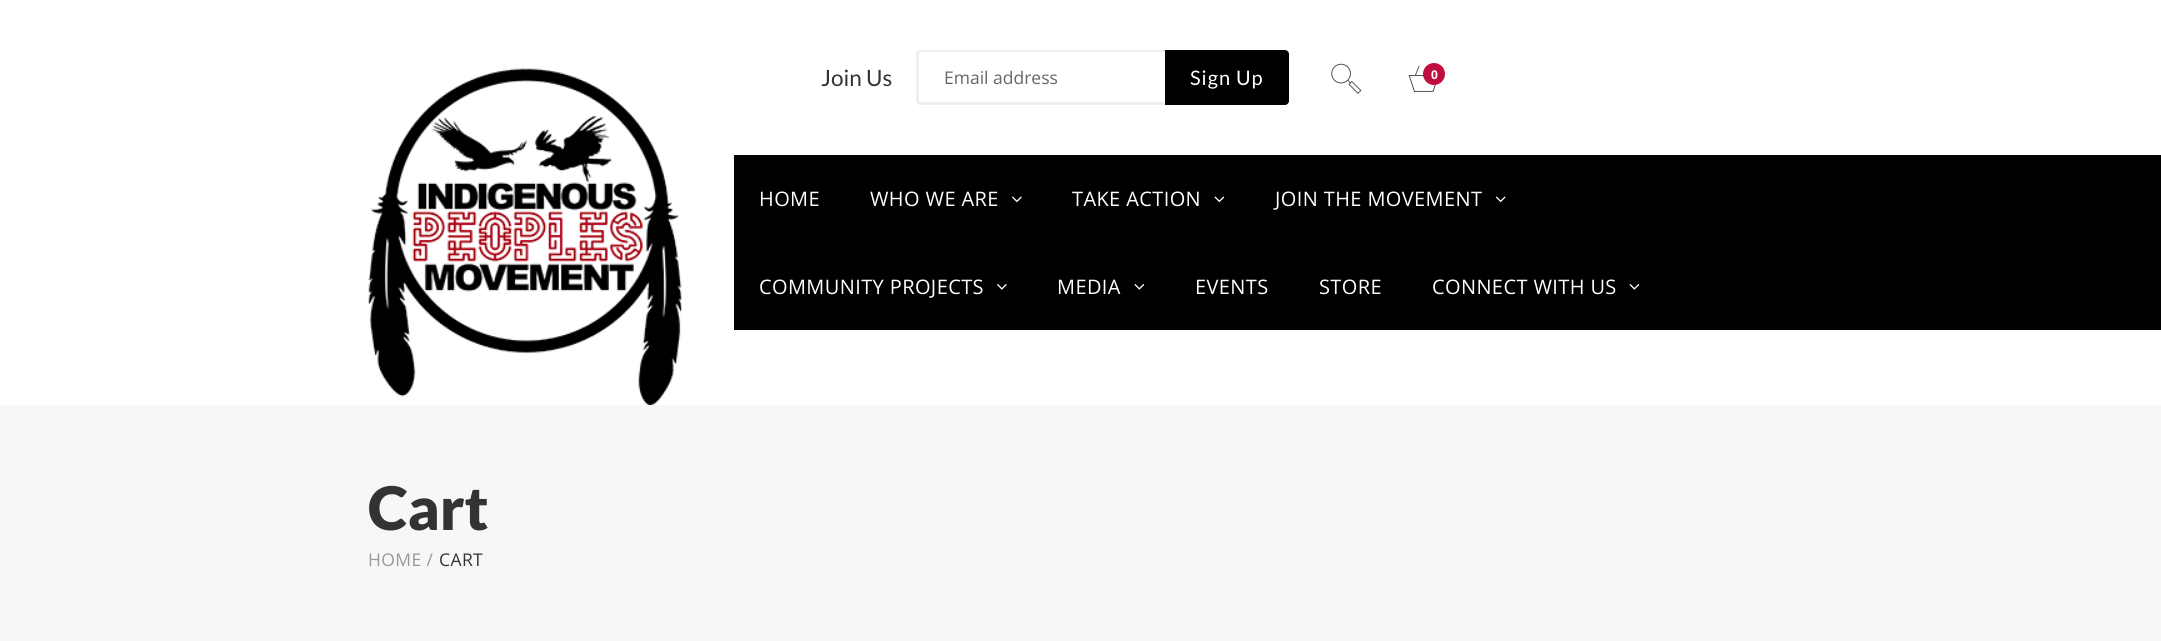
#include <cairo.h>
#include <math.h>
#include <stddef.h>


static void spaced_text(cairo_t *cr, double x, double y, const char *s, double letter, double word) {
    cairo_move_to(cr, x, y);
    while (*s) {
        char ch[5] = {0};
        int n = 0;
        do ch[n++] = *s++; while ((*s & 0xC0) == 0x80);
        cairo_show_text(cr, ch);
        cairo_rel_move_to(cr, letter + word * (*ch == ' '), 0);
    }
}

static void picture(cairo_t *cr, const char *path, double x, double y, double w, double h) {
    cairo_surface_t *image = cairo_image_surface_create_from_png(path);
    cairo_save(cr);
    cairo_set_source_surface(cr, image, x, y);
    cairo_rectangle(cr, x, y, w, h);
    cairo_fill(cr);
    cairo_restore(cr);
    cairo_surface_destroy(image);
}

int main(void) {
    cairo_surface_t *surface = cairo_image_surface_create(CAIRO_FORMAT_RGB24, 2161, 641);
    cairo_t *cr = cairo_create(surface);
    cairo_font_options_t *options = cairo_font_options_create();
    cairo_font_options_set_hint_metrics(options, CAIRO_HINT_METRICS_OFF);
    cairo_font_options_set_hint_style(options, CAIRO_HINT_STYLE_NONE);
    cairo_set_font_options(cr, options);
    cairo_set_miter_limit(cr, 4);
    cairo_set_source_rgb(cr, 1, 1, 1);
    cairo_paint(cr);
    picture(cr, "img1.png", 368, 68, 314, 337);
    cairo_select_font_face(cr, "Lato", CAIRO_FONT_SLANT_NORMAL, CAIRO_FONT_WEIGHT_NORMAL);
    cairo_set_font_size(cr, 22.5);
    cairo_set_source_rgb(cr, 0.2, 0.2, 0.2);
    cairo_move_to(cr, 821, 86);
    cairo_show_text(cr, "Join Us");
    cairo_set_source_rgb(cr, 0.933, 0.933, 0.933);
    cairo_set_fill_rule(cr, CAIRO_FILL_RULE_EVEN_ODD);
    cairo_new_path(cr);
    cairo_move_to(cr, 920, 50);
    cairo_line_to(cr, 1165, 50);
    cairo_line_to(cr, 1165, 105);
    cairo_line_to(cr, 920, 105);
    cairo_curve_to(cr, 918, 105, 916, 103, 916, 101);
    cairo_line_to(cr, 916, 54);
    cairo_curve_to(cr, 916, 52, 918, 50, 920, 50);
    cairo_close_path(cr);
    cairo_move_to(cr, 920, 52);
    cairo_line_to(cr, 1165, 52);
    cairo_line_to(cr, 1165, 102);
    cairo_line_to(cr, 920, 102);
    cairo_curve_to(cr, 919, 102, 919, 102, 919, 101);
    cairo_line_to(cr, 919, 54);
    cairo_curve_to(cr, 919, 53, 919, 52, 920, 52);
    cairo_close_path(cr);
    cairo_fill(cr);
    cairo_select_font_face(cr, "Open Sans", CAIRO_FONT_SLANT_NORMAL, CAIRO_FONT_WEIGHT_NORMAL);
    cairo_set_font_size(cr, 17.5);
    cairo_set_source_rgb(cr, 0.4, 0.4, 0.4);
    cairo_move_to(cr, 944, 84);
    cairo_show_text(cr, "Email address");
    cairo_set_source_rgb(cr, 0, 0, 0);
    cairo_new_path(cr);
    cairo_move_to(cr, 1165, 50);
    cairo_line_to(cr, 1285, 50);
    cairo_curve_to(cr, 1287, 50, 1289, 52, 1289, 54);
    cairo_line_to(cr, 1289, 101);
    cairo_curve_to(cr, 1289, 103, 1287, 105, 1285, 105);
    cairo_line_to(cr, 1165, 105);
    cairo_close_path(cr);
    cairo_fill(cr);
    cairo_select_font_face(cr, "Lato", CAIRO_FONT_SLANT_NORMAL, CAIRO_FONT_WEIGHT_NORMAL);
    cairo_set_font_size(cr, 20);
    cairo_set_source_rgb(cr, 1, 1, 1);
    spaced_text(cr, 1190, 85, "Sign Up", 1, 0);
    picture(cr, "img2.png", 1331, 63, 31, 31);
    picture(cr, "img3.png", 1408, 66, 28, 26);
    cairo_set_source_rgb(cr, 0.749, 0.051, 0.243);
    cairo_arc(cr, 1434, 74, 11, 0, 2 * M_PI);
    cairo_fill(cr);
    cairo_select_font_face(cr, "Open Sans", CAIRO_FONT_SLANT_NORMAL, CAIRO_FONT_WEIGHT_BOLD);
    cairo_set_font_size(cr, 12);
    cairo_set_source_rgb(cr, 1, 1, 1);
    cairo_move_to(cr, 1431, 79);
    cairo_show_text(cr, "0");
    cairo_set_source_rgb(cr, 0, 0, 0);
    cairo_rectangle(cr, 734, 155, 1427, 175);
    cairo_fill(cr);
    cairo_select_font_face(cr, "Open Sans", CAIRO_FONT_SLANT_NORMAL, CAIRO_FONT_WEIGHT_NORMAL);
    cairo_set_font_size(cr, 20);
    cairo_set_source_rgb(cr, 1, 1, 1);
    spaced_text(cr, 759, 206, "HOME", 0.4, 0);
    spaced_text(cr, 870, 206, "WHO WE ARE", 0.4, 0);
    picture(cr, "img4.png", 1012, 196, 10, 7);
    spaced_text(cr, 1072, 206, "TAKE ACTION", 0.4, 0);
    picture(cr, "img5.png", 1214, 196, 11, 7);
    spaced_text(cr, 1275, 206, "JOIN THE MOVEMENT", 0.4, 0);
    picture(cr, "img6.png", 1495, 196, 11, 7);
    spaced_text(cr, 759, 294, "COMMUNITY PROJECTS", 0.4, 0);
    picture(cr, "img7.png", 997, 284, 10, 6);
    spaced_text(cr, 1057, 294, "MEDIA", 0.4, 0);
    picture(cr, "img8.png", 1134, 284, 11, 6);
    spaced_text(cr, 1195, 294, "EVENTS", 0.4, 0);
    spaced_text(cr, 1319, 294, "STORE", 0.4, 0);
    spaced_text(cr, 1432, 294, "CONNECT WITH US", 0.4, 0);
    picture(cr, "img8.png", 1629, 284, 11, 6);
    cairo_set_source_rgb(cr, 0.965, 0.965, 0.965);
    cairo_rectangle(cr, 0, 405, 2161, 236);
    cairo_fill(cr);
    cairo_select_font_face(cr, "Lato Black", CAIRO_FONT_SLANT_NORMAL, CAIRO_FONT_WEIGHT_NORMAL);
    cairo_set_font_size(cr, 60);
    cairo_set_source_rgb(cr, 0.2, 0.2, 0.2);
    cairo_move_to(cr, 368, 530);
    cairo_show_text(cr, "Cart");
    cairo_select_font_face(cr, "Open Sans", CAIRO_FONT_SLANT_NORMAL, CAIRO_FONT_WEIGHT_NORMAL);
    cairo_set_font_size(cr, 17.5);
    cairo_set_source_rgb(cr, 0.6, 0.6, 0.6);
    spaced_text(cr, 368, 566, "HOME /", 0.4, 0);
    cairo_set_source_rgb(cr, 0.2, 0.2, 0.2);
    spaced_text(cr, 439, 566, "CART", 0.4, 0);
    cairo_surface_write_to_png(surface, "page.png");
    cairo_font_options_destroy(options);
    cairo_destroy(cr);
    cairo_surface_destroy(surface);
    return 0;
}
